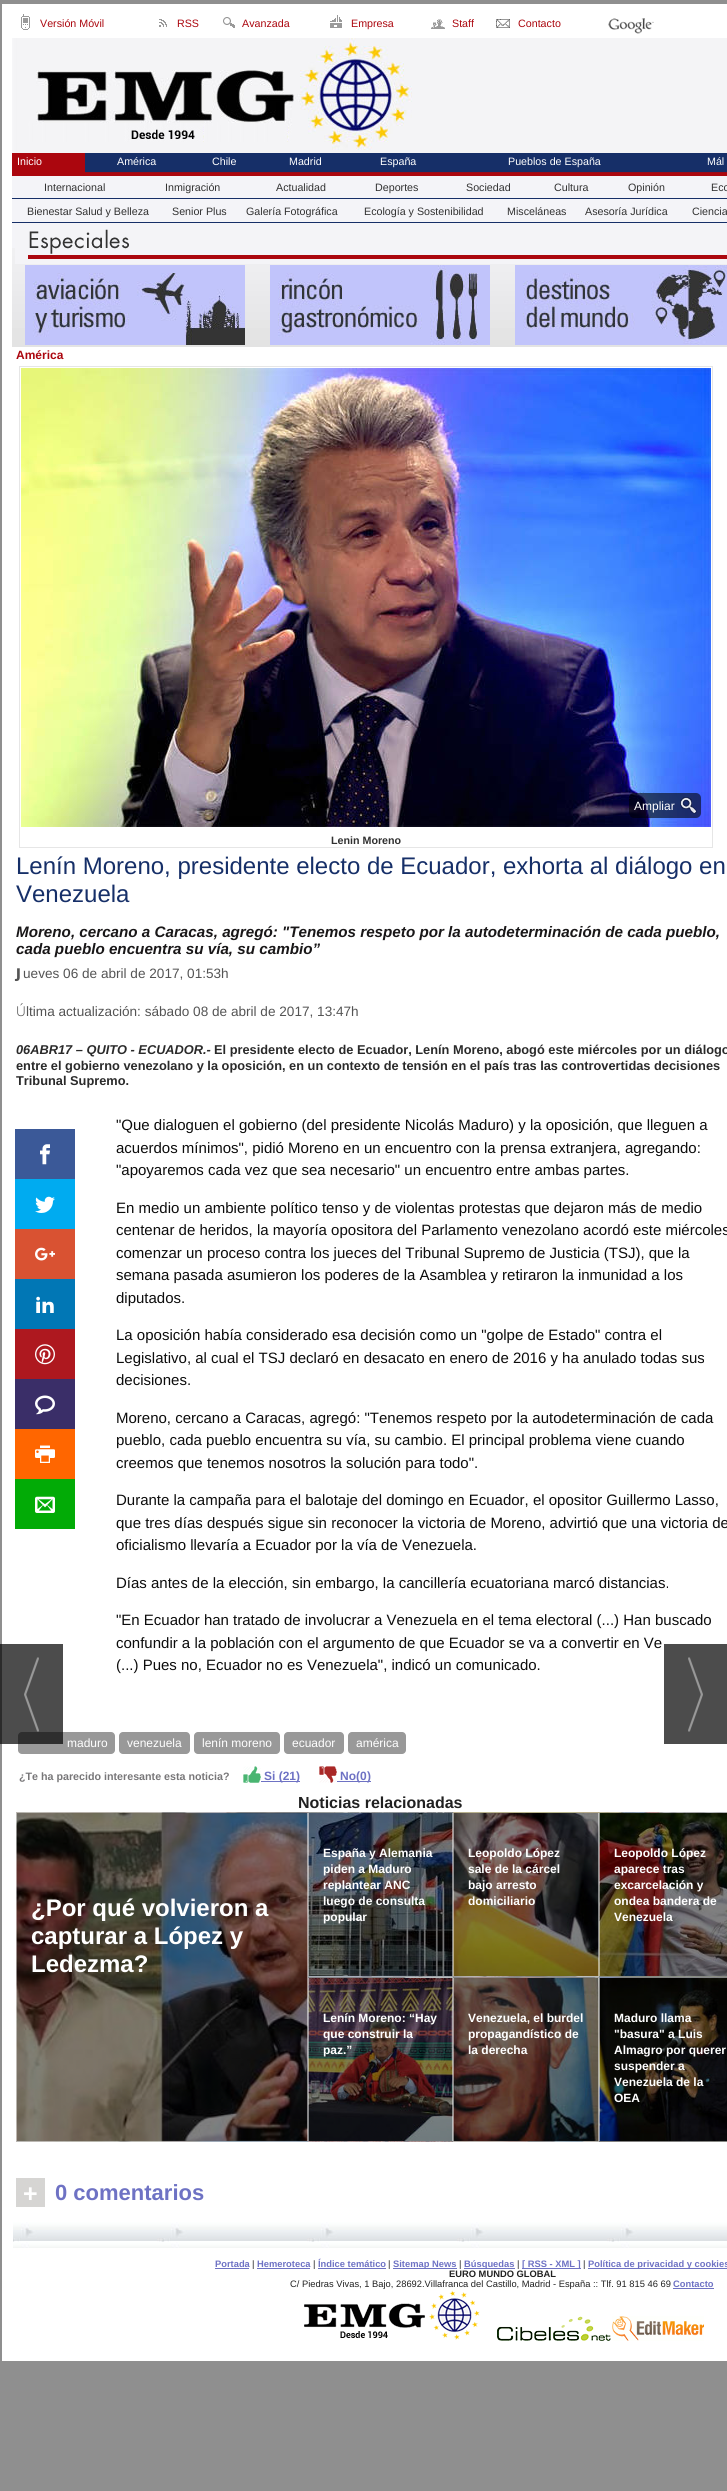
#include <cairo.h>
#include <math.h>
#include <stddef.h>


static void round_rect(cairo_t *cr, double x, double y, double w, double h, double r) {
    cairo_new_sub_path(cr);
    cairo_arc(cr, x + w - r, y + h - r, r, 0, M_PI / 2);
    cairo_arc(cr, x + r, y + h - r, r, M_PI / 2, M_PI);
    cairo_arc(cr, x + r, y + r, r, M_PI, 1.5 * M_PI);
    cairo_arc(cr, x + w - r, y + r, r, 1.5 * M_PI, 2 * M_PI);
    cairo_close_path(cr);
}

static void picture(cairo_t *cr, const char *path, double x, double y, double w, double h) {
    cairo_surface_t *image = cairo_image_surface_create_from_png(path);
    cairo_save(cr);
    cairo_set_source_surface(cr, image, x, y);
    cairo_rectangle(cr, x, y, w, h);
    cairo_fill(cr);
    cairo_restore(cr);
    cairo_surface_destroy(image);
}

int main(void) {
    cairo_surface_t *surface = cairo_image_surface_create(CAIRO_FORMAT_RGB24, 727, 2491);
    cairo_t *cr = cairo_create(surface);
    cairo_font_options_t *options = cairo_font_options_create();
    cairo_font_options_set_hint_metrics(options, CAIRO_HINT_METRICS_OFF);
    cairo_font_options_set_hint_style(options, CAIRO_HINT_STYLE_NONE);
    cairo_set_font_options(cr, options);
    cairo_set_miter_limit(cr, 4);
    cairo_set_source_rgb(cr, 0.561, 0.561, 0.561);
    cairo_paint(cr);
    cairo_set_source_rgb(cr, 1, 1, 1);
    cairo_rectangle(cr, 2, 4, 725, 2357);
    cairo_fill(cr);
    picture(cr, "img1.png", 21, 14, 9, 16);
    cairo_select_font_face(cr, "Liberation Sans", CAIRO_FONT_SLANT_NORMAL, CAIRO_FONT_WEIGHT_NORMAL);
    cairo_set_font_size(cr, 10.7);
    cairo_set_source_rgb(cr, 0.671, 0.027, 0.055);
    cairo_move_to(cr, 40, 27);
    cairo_show_text(cr, "Versión Móvil");
    picture(cr, "img2.png", 159, 19, 8, 8);
    cairo_move_to(cr, 177, 27);
    cairo_show_text(cr, "RSS");
    picture(cr, "img3.png", 223, 17, 12, 11);
    cairo_move_to(cr, 242, 27);
    cairo_show_text(cr, "Avanzada");
    picture(cr, "img4.png", 330, 15, 12, 13);
    cairo_move_to(cr, 351, 27);
    cairo_show_text(cr, "Empresa");
    picture(cr, "img5.png", 431, 19, 14, 10);
    cairo_move_to(cr, 452, 27);
    cairo_show_text(cr, "Staff");
    picture(cr, "img6.png", 496, 19, 14, 9);
    cairo_move_to(cr, 518, 27);
    cairo_show_text(cr, "Contacto");
    picture(cr, "img7.png", 608, 18, 46, 16);
    picture(cr, "img8.png", 12, 38, 715, 115);
    picture(cr, "img9.png", 85, 153, 642, 23);
    cairo_rectangle(cr, 12, 153, 73, 23);
    cairo_fill(cr);
    cairo_set_source_rgb(cr, 1, 1, 1);
    cairo_move_to(cr, 17, 165);
    cairo_show_text(cr, "Inicio");
    cairo_set_source_rgb(cr, 0.596, 0.047, 0.098);
    cairo_rectangle(cr, 85, 172, 642, 1);
    cairo_fill(cr);
    cairo_set_source_rgb(cr, 1, 1, 1);
    cairo_move_to(cr, 117, 165);
    cairo_show_text(cr, "América");
    cairo_move_to(cr, 212, 165);
    cairo_show_text(cr, "Chile");
    cairo_move_to(cr, 289, 165);
    cairo_show_text(cr, "Madrid");
    cairo_move_to(cr, 380, 165);
    cairo_show_text(cr, "España");
    cairo_move_to(cr, 508, 165);
    cairo_show_text(cr, "Pueblos de España");
    cairo_move_to(cr, 707, 165);
    cairo_show_text(cr, "Mál");
    cairo_set_source_rgb(cr, 0.957, 0.957, 0.969);
    cairo_rectangle(cr, 12, 176, 715, 24);
    cairo_fill(cr);
    cairo_set_source_rgb(cr, 0.086, 0.184, 0.408);
    cairo_rectangle(cr, 12, 198, 715, 1);
    cairo_fill(cr);
    cairo_set_source_rgb(cr, 0.192, 0.192, 0.192);
    cairo_move_to(cr, 44, 191);
    cairo_show_text(cr, "Internacional");
    cairo_move_to(cr, 165, 191);
    cairo_show_text(cr, "Inmigración");
    cairo_move_to(cr, 276, 191);
    cairo_show_text(cr, "Actualidad");
    cairo_move_to(cr, 375, 191);
    cairo_show_text(cr, "Deportes");
    cairo_move_to(cr, 466, 191);
    cairo_show_text(cr, "Sociedad");
    cairo_move_to(cr, 554, 191);
    cairo_show_text(cr, "Cultura");
    cairo_move_to(cr, 628, 191);
    cairo_show_text(cr, "Opinión");
    cairo_move_to(cr, 711, 191);
    cairo_show_text(cr, "Eco");
    cairo_set_source_rgb(cr, 0.957, 0.957, 0.969);
    cairo_rectangle(cr, 12, 200, 715, 48);
    cairo_fill(cr);
    cairo_set_source_rgb(cr, 0.086, 0.184, 0.408);
    cairo_rectangle(cr, 12, 222, 715, 1);
    cairo_fill(cr);
    cairo_set_source_rgb(cr, 0.192, 0.192, 0.192);
    cairo_move_to(cr, 27, 215);
    cairo_show_text(cr, "Bienestar Salud y Belleza");
    cairo_move_to(cr, 172, 215);
    cairo_show_text(cr, "Senior Plus");
    cairo_move_to(cr, 246, 215);
    cairo_show_text(cr, "Galería Fotográfica");
    cairo_move_to(cr, 364, 215);
    cairo_show_text(cr, "Ecología y Sostenibilidad");
    cairo_move_to(cr, 507, 215);
    cairo_show_text(cr, "Misceláneas");
    cairo_move_to(cr, 585, 215);
    cairo_show_text(cr, "Asesoría Jurídica");
    cairo_move_to(cr, 692, 215);
    cairo_show_text(cr, "Ciencia");
    picture(cr, "img10.png", 12, 248, 715, 99);
    picture(cr, "img11.png", 15, 229, 712, 35);
    picture(cr, "img12.png", 25, 265, 220, 80);
    picture(cr, "img13.png", 270, 265, 220, 80);
    picture(cr, "img14.png", 515, 265, 212, 80);
    cairo_select_font_face(cr, "Liberation Sans", CAIRO_FONT_SLANT_NORMAL, CAIRO_FONT_WEIGHT_BOLD);
    cairo_set_font_size(cr, 12);
    cairo_set_source_rgb(cr, 0.671, 0.027, 0.055);
    cairo_move_to(cr, 16, 359);
    cairo_show_text(cr, "América");
    cairo_set_source_rgb(cr, 0.902, 0.902, 0.902);
    cairo_rectangle(cr, 19, 366, 694, 1);
    cairo_fill(cr);
    cairo_rectangle(cr, 712, 366, 1, 482);
    cairo_fill(cr);
    cairo_rectangle(cr, 19, 847, 694, 1);
    cairo_fill(cr);
    cairo_rectangle(cr, 19, 366, 1, 482);
    cairo_fill(cr);
    picture(cr, "img15.png", 21, 368, 690, 459);
    cairo_set_source_rgba(cr, 0, 0, 0, 0.58);
    round_rect(cr, 629, 793, 72, 25, 5);
    cairo_fill(cr);
    cairo_select_font_face(cr, "Liberation Sans", CAIRO_FONT_SLANT_NORMAL, CAIRO_FONT_WEIGHT_NORMAL);
    cairo_set_source_rgb(cr, 1, 1, 1);
    cairo_move_to(cr, 634, 810);
    cairo_show_text(cr, "Ampliar");
    picture(cr, "img16.png", 680, 797, 17, 17);
    cairo_select_font_face(cr, "Liberation Sans", CAIRO_FONT_SLANT_NORMAL, CAIRO_FONT_WEIGHT_BOLD);
    cairo_set_font_size(cr, 10.7);
    cairo_set_source_rgb(cr, 0.192, 0.192, 0.192);
    cairo_move_to(cr, 331, 844);
    cairo_show_text(cr, "Lenin Moreno");
    cairo_select_font_face(cr, "Liberation Sans", CAIRO_FONT_SLANT_NORMAL, CAIRO_FONT_WEIGHT_NORMAL);
    cairo_set_font_size(cr, 24);
    cairo_set_source_rgb(cr, 0.086, 0.184, 0.408);
    cairo_move_to(cr, 16, 874);
    cairo_show_text(cr, "Lenín Moreno, presidente electo de Ecuador, exhorta al diálogo en");
    cairo_move_to(cr, 16, 902);
    cairo_show_text(cr, "Venezuela");
    cairo_select_font_face(cr, "Liberation Sans", CAIRO_FONT_SLANT_ITALIC, CAIRO_FONT_WEIGHT_BOLD);
    cairo_set_font_size(cr, 15.2);
    cairo_set_source_rgb(cr, 0.098, 0.09, 0.094);
    cairo_move_to(cr, 16, 937);
    cairo_show_text(cr, "Moreno, cercano a Caracas, agregó: \"Tenemos respeto por la autodeterminación de cada pueblo,");
    cairo_move_to(cr, 16, 954);
    cairo_show_text(cr, "cada pueblo encuentra su vía, su cambio”");
    cairo_select_font_face(cr, "Noto Sans Black", CAIRO_FONT_SLANT_NORMAL, CAIRO_FONT_WEIGHT_NORMAL);
    cairo_set_font_size(cr, 13.6);
    cairo_set_source_rgb(cr, 0.329, 0.329, 0.329);
    cairo_move_to(cr, 16, 978);
    cairo_show_text(cr, "J");
    cairo_select_font_face(cr, "Liberation Sans", CAIRO_FONT_SLANT_NORMAL, CAIRO_FONT_WEIGHT_NORMAL);
    cairo_move_to(cr, 23, 978);
    cairo_show_text(cr, "ueves 06 de abril de 2017, 01:53h");
    cairo_select_font_face(cr, "Noto Sans Light", CAIRO_FONT_SLANT_NORMAL, CAIRO_FONT_WEIGHT_NORMAL);
    cairo_move_to(cr, 16, 1016);
    cairo_show_text(cr, "Ú");
    cairo_select_font_face(cr, "Liberation Sans", CAIRO_FONT_SLANT_NORMAL, CAIRO_FONT_WEIGHT_NORMAL);
    cairo_move_to(cr, 26, 1016);
    cairo_show_text(cr, "ltima actualización: sábado 08 de abril de 2017, 13:47h");
    cairo_select_font_face(cr, "Liberation Sans", CAIRO_FONT_SLANT_ITALIC, CAIRO_FONT_WEIGHT_BOLD);
    cairo_set_font_size(cr, 12.8);
    cairo_set_source_rgb(cr, 0.165, 0.165, 0.165);
    cairo_move_to(cr, 16, 1054);
    cairo_show_text(cr, "06ABR17 – QUITO - ECUADOR.-");
    cairo_select_font_face(cr, "Liberation Sans", CAIRO_FONT_SLANT_NORMAL, CAIRO_FONT_WEIGHT_BOLD);
    cairo_move_to(cr, 214, 1054);
    cairo_show_text(cr, "El presidente electo de Ecuador, Lenín Moreno, abogó este miércoles por un diálogo");
    cairo_move_to(cr, 16, 1070);
    cairo_show_text(cr, "entre el gobierno venezolano y la oposición, en un contexto de tensión en el país tras las controvertidas decisiones");
    cairo_move_to(cr, 16, 1085);
    cairo_show_text(cr, "Tribunal Supremo.");
    cairo_set_source_rgb(cr, 0.231, 0.349, 0.596);
    cairo_rectangle(cr, 15, 1129, 60, 50);
    cairo_fill(cr);
    picture(cr, "img17.png", 40, 1144, 10, 21);
    cairo_set_source_rgb(cr, 0, 0.671, 0.941);
    cairo_rectangle(cr, 15, 1179, 60, 50);
    cairo_fill(cr);
    picture(cr, "img18.png", 35, 1196, 20, 17);
    cairo_set_source_rgb(cr, 0.851, 0.322, 0.196);
    cairo_rectangle(cr, 15, 1229, 60, 50);
    cairo_fill(cr);
    picture(cr, "img19.png", 35, 1247, 20, 14);
    cairo_set_source_rgb(cr, 0.004, 0.467, 0.71);
    cairo_rectangle(cr, 15, 1279, 60, 50);
    cairo_fill(cr);
    picture(cr, "img20.png", 36, 1296, 18, 17);
    cairo_set_source_rgb(cr, 0.682, 0.094, 0.122);
    cairo_rectangle(cr, 15, 1329, 60, 50);
    cairo_fill(cr);
    picture(cr, "img21.png", 35, 1344, 20, 21);
    cairo_set_source_rgb(cr, 0.227, 0.18, 0.408);
    cairo_rectangle(cr, 15, 1379, 60, 50);
    cairo_fill(cr);
    picture(cr, "img22.png", 35, 1395, 20, 20);
    cairo_set_source_rgb(cr, 1, 0.4, 0);
    cairo_rectangle(cr, 15, 1429, 60, 50);
    cairo_fill(cr);
    picture(cr, "img23.png", 35, 1445, 20, 18);
    cairo_set_source_rgb(cr, 0.008, 0.671, 0.024);
    cairo_rectangle(cr, 15, 1479, 60, 50);
    cairo_fill(cr);
    picture(cr, "img24.png", 35, 1496, 20, 17);
    cairo_select_font_face(cr, "Liberation Sans", CAIRO_FONT_SLANT_NORMAL, CAIRO_FONT_WEIGHT_NORMAL);
    cairo_set_font_size(cr, 15);
    cairo_set_source_rgb(cr, 0.047, 0.047, 0.047);
    cairo_move_to(cr, 116, 1130);
    cairo_show_text(cr, "\"Que dialoguen el gobierno (del presidente Nicolás Maduro) y la oposición, que lleguen a");
    cairo_move_to(cr, 116, 1153);
    cairo_show_text(cr, "acuerdos mínimos\", pidió Moreno en un encuentro con la prensa extranjera, agregando:");
    cairo_move_to(cr, 116, 1175);
    cairo_show_text(cr, "\"apoyaremos cada vez que sea necesario\" un encuentro entre ambas partes.");
    cairo_move_to(cr, 116, 1213);
    cairo_show_text(cr, "En medio un ambiente político tenso y de violentas protestas que dejaron más de medio");
    cairo_move_to(cr, 116, 1235);
    cairo_show_text(cr, "centenar de heridos, la mayoría opositora del Parlamento venezolano acordó este miércoles");
    cairo_move_to(cr, 116, 1258);
    cairo_show_text(cr, "comenzar un proceso contra los jueces del Tribunal Supremo de Justicia (TSJ), que la");
    cairo_move_to(cr, 116, 1280);
    cairo_show_text(cr, "semana pasada asumieron los poderes de la Asamblea y retiraron la inmunidad a los");
    cairo_move_to(cr, 116, 1303);
    cairo_show_text(cr, "diputados.");
    cairo_move_to(cr, 116, 1340);
    cairo_show_text(cr, "La oposición había considerado esa decisión como un \"golpe de Estado\" contra el");
    cairo_move_to(cr, 116, 1363);
    cairo_show_text(cr, "Legislativo, al cual el TSJ declaró en desacato en enero de 2016 y ha anulado todas sus");
    cairo_move_to(cr, 116, 1385);
    cairo_show_text(cr, "decisiones.");
    cairo_move_to(cr, 116, 1423);
    cairo_show_text(cr, "Moreno, cercano a Caracas, agregó: \"Tenemos respeto por la autodeterminación de cada");
    cairo_move_to(cr, 116, 1445);
    cairo_show_text(cr, "pueblo, cada pueblo encuentra su vía, su cambio. El principal problema viene cuando");
    cairo_move_to(cr, 116, 1468);
    cairo_show_text(cr, "creemos que tenemos nosotros la solución para todo\".");
    cairo_move_to(cr, 116, 1505);
    cairo_show_text(cr, "Durante la campaña para el balotaje del domingo en Ecuador, el opositor Guillermo Lasso,");
    cairo_move_to(cr, 116, 1528);
    cairo_show_text(cr, "que tres días después sigue sin reconocer la victoria de Moreno, advirtió que una victoria de");
    cairo_move_to(cr, 116, 1550);
    cairo_show_text(cr, "oficialismo llevaría a Ecuador por la vía de Venezuela.");
    cairo_move_to(cr, 116, 1588);
    cairo_show_text(cr, "Días antes de la elección, sin embargo, la cancillería ecuatoriana marcó distancias.");
    cairo_move_to(cr, 116, 1625);
    cairo_show_text(cr, "\"En Ecuador han tratado de involucrar a Venezuela en el tema electoral (...) Han buscado");
    cairo_move_to(cr, 116, 1648);
    cairo_show_text(cr, "confundir a la población con el argumento de que Ecuador se va a convertir en Ve");
    cairo_move_to(cr, 116, 1670);
    cairo_show_text(cr, "(...) Pues no, Ecuador no es Venezuela\", indicó un comunicado.");
    cairo_set_source_rgb(cr, 0.6, 0.6, 0.6);
    round_rect(cr, 18, 1732, 97, 22, 4);
    cairo_fill(cr);
    cairo_set_font_size(cr, 12);
    cairo_set_source_rgb(cr, 1, 1, 1);
    cairo_move_to(cr, 67, 1747);
    cairo_show_text(cr, "maduro");
    cairo_set_source_rgb(cr, 0.6, 0.6, 0.6);
    round_rect(cr, 119, 1732, 71, 22, 4);
    cairo_fill(cr);
    cairo_set_source_rgb(cr, 1, 1, 1);
    cairo_move_to(cr, 127, 1747);
    cairo_show_text(cr, "venezuela");
    cairo_set_source_rgb(cr, 0.6, 0.6, 0.6);
    round_rect(cr, 194, 1732, 86, 22, 4);
    cairo_fill(cr);
    cairo_set_source_rgb(cr, 1, 1, 1);
    cairo_move_to(cr, 202, 1747);
    cairo_show_text(cr, "lenín moreno");
    cairo_set_source_rgb(cr, 0.6, 0.6, 0.6);
    round_rect(cr, 284, 1732, 60, 22, 4);
    cairo_fill(cr);
    cairo_set_source_rgb(cr, 1, 1, 1);
    cairo_move_to(cr, 292, 1747);
    cairo_show_text(cr, "ecuador");
    cairo_set_source_rgb(cr, 0.6, 0.6, 0.6);
    round_rect(cr, 348, 1732, 58, 22, 4);
    cairo_fill(cr);
    cairo_set_source_rgb(cr, 1, 1, 1);
    cairo_move_to(cr, 356, 1747);
    cairo_show_text(cr, "américa");
    cairo_select_font_face(cr, "Liberation Sans", CAIRO_FONT_SLANT_NORMAL, CAIRO_FONT_WEIGHT_BOLD);
    cairo_set_font_size(cr, 10.7);
    cairo_set_source_rgb(cr, 0.471, 0.467, 0.475);
    cairo_move_to(cr, 19, 1780);
    cairo_show_text(cr, "¿Te ha parecido interesante esta noticia?");
    picture(cr, "img25.png", 243, 1766, 18, 17);
    cairo_set_source_rgb(cr, 0.431, 0.447, 0.769);
    cairo_rectangle(cr, 261, 1781, 39, 1);
    cairo_fill(cr);
    cairo_set_font_size(cr, 12);
    cairo_move_to(cr, 264, 1780);
    cairo_show_text(cr, "Si (21)");
    picture(cr, "img26.png", 319, 1766, 18, 17);
    cairo_rectangle(cr, 337, 1781, 23, 1);
    cairo_fill(cr);
    cairo_move_to(cr, 340, 1780);
    cairo_show_text(cr, "No(0");
    cairo_rectangle(cr, 360, 1781, 11, 1);
    cairo_fill(cr);
    cairo_move_to(cr, 367, 1780);
    cairo_show_text(cr, ")");
    cairo_set_font_size(cr, 16);
    cairo_set_source_rgb(cr, 0.129, 0.129, 0.129);
    cairo_move_to(cr, 298, 1808);
    cairo_show_text(cr, "Noticias relacionadas");
    cairo_set_source_rgb(cr, 0, 0, 0);
    cairo_rectangle(cr, 16, 1812, 711, 330);
    cairo_fill(cr);
    picture(cr, "img27.png", 16, 1812, 292, 330);
    cairo_rectangle(cr, 16.5, 1812.5, 291, 329);
    cairo_set_source_rgba(cr, 1, 1, 1, 0.5);
    cairo_set_line_width(cr, 1);
    cairo_stroke(cr);
    cairo_set_font_size(cr, 24);
    cairo_set_source_rgb(cr, 1, 1, 1);
    cairo_move_to(cr, 31, 1916);
    cairo_show_text(cr, "¿Por qué volvieron a");
    cairo_move_to(cr, 31, 1944);
    cairo_show_text(cr, "capturar a López y");
    cairo_move_to(cr, 31, 1972);
    cairo_show_text(cr, "Ledezma?");
    picture(cr, "img28.png", 308, 1812, 145, 165);
    cairo_rectangle(cr, 308.5, 1812.5, 144, 164);
    cairo_set_source_rgba(cr, 1, 1, 1, 0.5);
    cairo_stroke(cr);
    cairo_set_font_size(cr, 12);
    cairo_set_source_rgb(cr, 1, 1, 1);
    cairo_move_to(cr, 323, 1857);
    cairo_show_text(cr, "España y Alemania");
    cairo_move_to(cr, 323, 1873);
    cairo_show_text(cr, "piden a Maduro");
    cairo_move_to(cr, 323, 1889);
    cairo_show_text(cr, "replantear ANC");
    cairo_move_to(cr, 323, 1905);
    cairo_show_text(cr, "luego de consulta");
    cairo_move_to(cr, 323, 1921);
    cairo_show_text(cr, "popular");
    picture(cr, "img29.png", 308, 1977, 145, 165);
    cairo_rectangle(cr, 308.5, 1977.5, 144, 164);
    cairo_set_source_rgba(cr, 1, 1, 1, 0.5);
    cairo_stroke(cr);
    cairo_set_source_rgb(cr, 1, 1, 1);
    cairo_move_to(cr, 323, 2022);
    cairo_show_text(cr, "Lenín Moreno: “Hay");
    cairo_move_to(cr, 323, 2038);
    cairo_show_text(cr, "que construir la");
    cairo_move_to(cr, 323, 2054);
    cairo_show_text(cr, "paz.”");
    picture(cr, "img30.png", 453, 1812, 146, 165);
    cairo_rectangle(cr, 453.5, 1812.5, 145, 164);
    cairo_set_source_rgba(cr, 1, 1, 1, 0.5);
    cairo_stroke(cr);
    cairo_set_source_rgb(cr, 1, 1, 1);
    cairo_move_to(cr, 468, 1857);
    cairo_show_text(cr, "Leopoldo López");
    cairo_move_to(cr, 468, 1873);
    cairo_show_text(cr, "sale de la cárcel");
    cairo_move_to(cr, 468, 1889);
    cairo_show_text(cr, "bajo arresto");
    cairo_move_to(cr, 468, 1905);
    cairo_show_text(cr, "domiciliario");
    picture(cr, "img31.png", 453, 1977, 146, 165);
    cairo_rectangle(cr, 453.5, 1977.5, 145, 164);
    cairo_set_source_rgba(cr, 1, 1, 1, 0.5);
    cairo_stroke(cr);
    cairo_set_source_rgb(cr, 1, 1, 1);
    cairo_move_to(cr, 468, 2022);
    cairo_show_text(cr, "Venezuela, el burdel");
    cairo_move_to(cr, 468, 2038);
    cairo_show_text(cr, "propagandístico de");
    cairo_move_to(cr, 468, 2054);
    cairo_show_text(cr, "la derecha");
    picture(cr, "img32.png", 599, 1812, 128, 165);
    cairo_rectangle(cr, 599.5, 1812.5, 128, 164);
    cairo_set_source_rgba(cr, 1, 1, 1, 0.5);
    cairo_stroke(cr);
    cairo_set_source_rgb(cr, 1, 1, 1);
    cairo_move_to(cr, 614, 1857);
    cairo_show_text(cr, "Leopoldo López");
    cairo_move_to(cr, 614, 1873);
    cairo_show_text(cr, "aparece tras");
    cairo_move_to(cr, 614, 1889);
    cairo_show_text(cr, "excarcelación y");
    cairo_move_to(cr, 614, 1905);
    cairo_show_text(cr, "ondea bandera de");
    cairo_move_to(cr, 614, 1921);
    cairo_show_text(cr, "Venezuela");
    picture(cr, "img33.png", 599, 1977, 128, 165);
    cairo_rectangle(cr, 599.5, 1977.5, 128, 164);
    cairo_set_source_rgba(cr, 1, 1, 1, 0.5);
    cairo_stroke(cr);
    cairo_set_source_rgb(cr, 1, 1, 1);
    cairo_move_to(cr, 614, 2022);
    cairo_show_text(cr, "Maduro llama");
    cairo_move_to(cr, 614, 2038);
    cairo_show_text(cr, "\"basura\" a Luis");
    cairo_move_to(cr, 614, 2054);
    cairo_show_text(cr, "Almagro por querer");
    cairo_move_to(cr, 614, 2070);
    cairo_show_text(cr, "suspender a");
    cairo_move_to(cr, 614, 2086);
    cairo_show_text(cr, "Venezuela de la");
    cairo_move_to(cr, 614, 2102);
    cairo_show_text(cr, "OEA");
    cairo_set_source_rgb(cr, 0.839, 0.835, 0.827);
    cairo_rectangle(cr, 16, 2178, 29, 29);
    cairo_fill(cr);
    cairo_set_font_size(cr, 25);
    cairo_set_source_rgb(cr, 1, 1, 1);
    cairo_move_to(cr, 23, 2202);
    cairo_show_text(cr, "+");
    cairo_set_font_size(cr, 22);
    cairo_set_source_rgb(cr, 0.431, 0.447, 0.769);
    cairo_move_to(cr, 55, 2200);
    cairo_show_text(cr, "0 comentarios");
    picture(cr, "img34.png", 13, 2222, 714, 26);
    cairo_set_source_rgba(cr, 0, 0, 0, 0.7);
    cairo_rectangle(cr, 0, 1644, 63, 100);
    cairo_fill(cr);
    picture(cr, "img35.png", 24, 1657, 15, 75);
    cairo_rectangle(cr, 664, 1644, 63, 100);
    cairo_fill(cr);
    picture(cr, "img36.png", 688, 1657, 15, 75);
    cairo_set_font_size(cr, 9.35);
    cairo_set_source_rgb(cr, 0.431, 0.447, 0.769);
    cairo_move_to(cr, 215, 2267);
    cairo_show_text(cr, "Portada");
    cairo_rectangle(cr, 215, 2268, 34, 1);
    cairo_fill(cr);
    cairo_select_font_face(cr, "Liberation Sans", CAIRO_FONT_SLANT_NORMAL, CAIRO_FONT_WEIGHT_NORMAL);
    cairo_set_source_rgb(cr, 0.129, 0.129, 0.129);
    cairo_move_to(cr, 252, 2267);
    cairo_show_text(cr, "|");
    cairo_select_font_face(cr, "Liberation Sans", CAIRO_FONT_SLANT_NORMAL, CAIRO_FONT_WEIGHT_BOLD);
    cairo_set_source_rgb(cr, 0.431, 0.447, 0.769);
    cairo_move_to(cr, 257, 2267);
    cairo_show_text(cr, "Hemeroteca");
    cairo_rectangle(cr, 257, 2268, 53, 1);
    cairo_fill(cr);
    cairo_select_font_face(cr, "Liberation Sans", CAIRO_FONT_SLANT_NORMAL, CAIRO_FONT_WEIGHT_NORMAL);
    cairo_set_source_rgb(cr, 0.129, 0.129, 0.129);
    cairo_move_to(cr, 313, 2267);
    cairo_show_text(cr, "|");
    cairo_select_font_face(cr, "Liberation Sans", CAIRO_FONT_SLANT_NORMAL, CAIRO_FONT_WEIGHT_BOLD);
    cairo_set_source_rgb(cr, 0.431, 0.447, 0.769);
    cairo_move_to(cr, 318, 2267);
    cairo_show_text(cr, "Índice temático");
    cairo_rectangle(cr, 318, 2268, 68, 1);
    cairo_fill(cr);
    cairo_select_font_face(cr, "Liberation Sans", CAIRO_FONT_SLANT_NORMAL, CAIRO_FONT_WEIGHT_NORMAL);
    cairo_set_source_rgb(cr, 0.129, 0.129, 0.129);
    cairo_move_to(cr, 388, 2267);
    cairo_show_text(cr, "|");
    cairo_set_source_rgb(cr, 0.431, 0.447, 0.769);
    cairo_rectangle(cr, 393, 2268, 64, 1);
    cairo_fill(cr);
    cairo_select_font_face(cr, "Liberation Sans", CAIRO_FONT_SLANT_NORMAL, CAIRO_FONT_WEIGHT_BOLD);
    cairo_move_to(cr, 393, 2267);
    cairo_show_text(cr, "Sitemap News");
    cairo_select_font_face(cr, "Liberation Sans", CAIRO_FONT_SLANT_NORMAL, CAIRO_FONT_WEIGHT_NORMAL);
    cairo_set_source_rgb(cr, 0.129, 0.129, 0.129);
    cairo_move_to(cr, 459, 2267);
    cairo_show_text(cr, "|");
    cairo_set_source_rgb(cr, 0.431, 0.447, 0.769);
    cairo_rectangle(cr, 464, 2268, 51, 1);
    cairo_fill(cr);
    cairo_select_font_face(cr, "Liberation Sans", CAIRO_FONT_SLANT_NORMAL, CAIRO_FONT_WEIGHT_BOLD);
    cairo_move_to(cr, 464, 2267);
    cairo_show_text(cr, "Búsquedas");
    cairo_select_font_face(cr, "Liberation Sans", CAIRO_FONT_SLANT_NORMAL, CAIRO_FONT_WEIGHT_NORMAL);
    cairo_set_source_rgb(cr, 0.129, 0.129, 0.129);
    cairo_move_to(cr, 517, 2267);
    cairo_show_text(cr, "|");
    cairo_set_source_rgb(cr, 0.431, 0.447, 0.769);
    cairo_rectangle(cr, 522, 2268, 59, 1);
    cairo_fill(cr);
    cairo_select_font_face(cr, "Liberation Sans", CAIRO_FONT_SLANT_NORMAL, CAIRO_FONT_WEIGHT_BOLD);
    cairo_move_to(cr, 522, 2267);
    cairo_show_text(cr, "[ RSS - XML ]");
    cairo_select_font_face(cr, "Liberation Sans", CAIRO_FONT_SLANT_NORMAL, CAIRO_FONT_WEIGHT_NORMAL);
    cairo_set_source_rgb(cr, 0.129, 0.129, 0.129);
    cairo_move_to(cr, 583, 2267);
    cairo_show_text(cr, "|");
    cairo_set_source_rgb(cr, 0.431, 0.447, 0.769);
    cairo_rectangle(cr, 588, 2268, 139, 1);
    cairo_fill(cr);
    cairo_select_font_face(cr, "Liberation Sans", CAIRO_FONT_SLANT_NORMAL, CAIRO_FONT_WEIGHT_BOLD);
    cairo_move_to(cr, 588, 2267);
    cairo_show_text(cr, "Política de privacidad y cookies");
    cairo_set_source_rgb(cr, 0.129, 0.129, 0.129);
    cairo_move_to(cr, 449, 2277);
    cairo_show_text(cr, "EURO MUNDO GLOBAL");
    cairo_select_font_face(cr, "Liberation Sans", CAIRO_FONT_SLANT_NORMAL, CAIRO_FONT_WEIGHT_NORMAL);
    cairo_move_to(cr, 290, 2287);
    cairo_show_text(cr, "C/ Piedras Vivas, 1 Bajo, 28692.Villafranca del Castillo, Madrid - España :: Tlf. 91 815 46 69");
    cairo_select_font_face(cr, "Liberation Sans", CAIRO_FONT_SLANT_NORMAL, CAIRO_FONT_WEIGHT_BOLD);
    cairo_set_source_rgb(cr, 0.431, 0.447, 0.769);
    cairo_move_to(cr, 673, 2287);
    cairo_show_text(cr, "Contacto");
    cairo_rectangle(cr, 673, 2288, 41, 1);
    cairo_fill(cr);
    picture(cr, "img37.png", 304, 2290, 176, 50);
    picture(cr, "img38.png", 497, 2316, 114, 25);
    picture(cr, "img39.png", 612, 2316, 92, 25);
    cairo_surface_write_to_png(surface, "page.png");
    cairo_font_options_destroy(options);
    cairo_destroy(cr);
    cairo_surface_destroy(surface);
    return 0;
}
